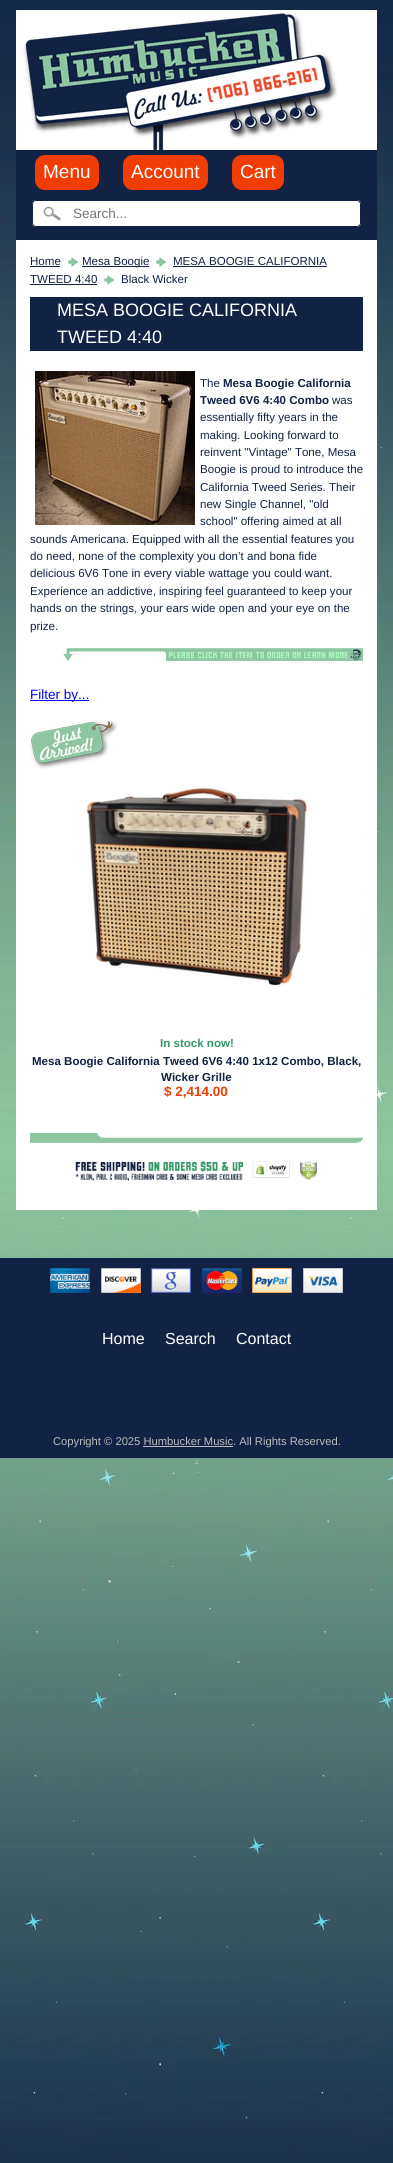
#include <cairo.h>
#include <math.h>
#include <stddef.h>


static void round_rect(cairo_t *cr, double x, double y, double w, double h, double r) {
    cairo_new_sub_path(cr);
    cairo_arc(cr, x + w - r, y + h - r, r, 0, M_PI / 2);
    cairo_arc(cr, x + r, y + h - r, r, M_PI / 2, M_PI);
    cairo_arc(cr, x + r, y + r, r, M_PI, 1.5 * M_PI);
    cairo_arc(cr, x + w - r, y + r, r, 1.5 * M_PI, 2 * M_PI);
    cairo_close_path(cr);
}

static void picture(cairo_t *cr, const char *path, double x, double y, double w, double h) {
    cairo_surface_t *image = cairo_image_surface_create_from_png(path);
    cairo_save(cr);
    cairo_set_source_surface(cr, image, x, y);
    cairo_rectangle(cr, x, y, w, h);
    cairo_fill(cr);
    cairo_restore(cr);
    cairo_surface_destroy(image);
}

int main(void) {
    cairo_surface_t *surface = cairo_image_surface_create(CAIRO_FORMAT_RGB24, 393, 2163);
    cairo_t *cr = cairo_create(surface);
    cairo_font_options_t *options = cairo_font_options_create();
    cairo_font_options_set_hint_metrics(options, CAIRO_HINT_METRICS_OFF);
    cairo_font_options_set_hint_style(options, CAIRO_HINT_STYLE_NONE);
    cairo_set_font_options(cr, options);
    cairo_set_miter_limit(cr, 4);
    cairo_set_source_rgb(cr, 1, 1, 1);
    cairo_paint(cr);
    picture(cr, "img1.png", 0, 0, 393, 2163);
    cairo_set_source_rgb(cr, 1, 1, 1);
    cairo_rectangle(cr, 16, 10, 361, 140);
    cairo_fill(cr);
    picture(cr, "img2.png", 23, 13, 315, 137);
    cairo_set_source_rgb(cr, 0.067, 0.133, 0.267);
    cairo_rectangle(cr, 16, 150, 361, 90);
    cairo_fill(cr);
    cairo_set_source_rgb(cr, 0.941, 0.239, 0.016);
    round_rect(cr, 36.5, 156.5, 61, 32, 8.5);
    cairo_fill_preserve(cr);
    cairo_set_line_width(cr, 3);
    cairo_stroke(cr);
    cairo_select_font_face(cr, "Liberation Sans", CAIRO_FONT_SLANT_NORMAL, CAIRO_FONT_WEIGHT_NORMAL);
    cairo_set_font_size(cr, 19);
    cairo_set_source_rgb(cr, 1, 1, 1);
    cairo_move_to(cr, 43, 178);
    cairo_show_text(cr, "Menu");
    cairo_set_source_rgb(cr, 0.941, 0.239, 0.016);
    round_rect(cr, 124.5, 156.5, 82, 32, 8.5);
    cairo_fill_preserve(cr);
    cairo_stroke(cr);
    cairo_set_source_rgb(cr, 1, 1, 1);
    cairo_move_to(cr, 131, 178);
    cairo_show_text(cr, "Account");
    cairo_set_source_rgb(cr, 0.941, 0.239, 0.016);
    round_rect(cr, 233.5, 156.5, 49, 32, 8.5);
    cairo_fill_preserve(cr);
    cairo_stroke(cr);
    cairo_set_source_rgb(cr, 1, 1, 1);
    cairo_move_to(cr, 240, 178);
    cairo_show_text(cr, "Cart");
    round_rect(cr, 32, 200, 329, 27, 4);
    cairo_fill(cr);
    picture(cr, "img3.png", 43, 206, 18, 15);
    round_rect(cr, 32.5, 200.5, 328, 26, 3.5);
    cairo_set_source_rgb(cr, 0.067, 0.133, 0.267);
    cairo_set_line_width(cr, 1);
    cairo_stroke(cr);
    cairo_set_font_size(cr, 13.5);
    cairo_set_source_rgb(cr, 0.459, 0.459, 0.459);
    cairo_move_to(cr, 73, 218);
    cairo_show_text(cr, "Search...");
    cairo_set_source_rgb(cr, 1, 1, 1);
    cairo_rectangle(cr, 16, 240, 361, 970);
    cairo_fill(cr);
    cairo_set_font_size(cr, 11.55);
    cairo_set_source_rgb(cr, 0.067, 0.133, 0.267);
    cairo_move_to(cr, 30, 265);
    cairo_show_text(cr, "Home");
    cairo_rectangle(cr, 30, 266, 30, 1);
    cairo_fill(cr);
    picture(cr, "img4.png", 68, 257, 12, 10);
    cairo_rectangle(cr, 82, 266, 67, 1);
    cairo_fill(cr);
    cairo_move_to(cr, 82, 265);
    cairo_show_text(cr, "Mesa Boogie");
    picture(cr, "img4.png", 156, 257, 12, 10);
    cairo_move_to(cr, 173, 265);
    cairo_show_text(cr, "MESA BOOGIE CALIFORNIA");
    cairo_rectangle(cr, 173, 266, 154, 1);
    cairo_fill(cr);
    cairo_move_to(cr, 30, 283);
    cairo_show_text(cr, "TWEED 4:40");
    cairo_rectangle(cr, 30, 284, 67, 1);
    cairo_fill(cr);
    picture(cr, "img4.png", 104, 275, 12, 10);
    cairo_move_to(cr, 121, 283);
    cairo_show_text(cr, "Black Wicker");
    cairo_rectangle(cr, 30, 297, 333, 54);
    cairo_fill(cr);
    cairo_set_font_size(cr, 18);
    cairo_set_source_rgb(cr, 1, 1, 1);
    cairo_move_to(cr, 57, 316);
    cairo_show_text(cr, "MESA BOOGIE CALIFORNIA");
    cairo_move_to(cr, 57, 343);
    cairo_show_text(cr, "TWEED 4:40");
    picture(cr, "img5.png", 35, 371, 160, 154);
    cairo_set_font_size(cr, 11.55);
    cairo_set_source_rgb(cr, 0.067, 0.133, 0.267);
    cairo_move_to(cr, 200, 387);
    cairo_show_text(cr, "The");
    cairo_select_font_face(cr, "Liberation Sans", CAIRO_FONT_SLANT_NORMAL, CAIRO_FONT_WEIGHT_BOLD);
    cairo_move_to(cr, 223, 387);
    cairo_show_text(cr, "Mesa Boogie California");
    cairo_move_to(cr, 200, 404);
    cairo_show_text(cr, "Tweed 6V6 4:40 Combo");
    cairo_select_font_face(cr, "Liberation Sans", CAIRO_FONT_SLANT_NORMAL, CAIRO_FONT_WEIGHT_NORMAL);
    cairo_move_to(cr, 332, 404);
    cairo_show_text(cr, "was");
    cairo_move_to(cr, 200, 421);
    cairo_show_text(cr, "essentially fifty years in the");
    cairo_move_to(cr, 200, 439);
    cairo_show_text(cr, "making. Looking forward to");
    cairo_move_to(cr, 200, 456);
    cairo_show_text(cr, "reinvent \"Vintage\" Tone, Mesa");
    cairo_move_to(cr, 200, 473);
    cairo_show_text(cr, "Boogie is proud to introduce the");
    cairo_move_to(cr, 200, 491);
    cairo_show_text(cr, "California Tweed Series. Their");
    cairo_move_to(cr, 200, 508);
    cairo_show_text(cr, "new Single Channel, \"old");
    cairo_move_to(cr, 200, 525);
    cairo_show_text(cr, "school\" offering aimed at all");
    cairo_move_to(cr, 30, 543);
    cairo_show_text(cr, "sounds Americana. Equipped with all the essential features you");
    cairo_move_to(cr, 30, 560);
    cairo_show_text(cr, "do need, none of the complexity you don’t and bona fide");
    cairo_move_to(cr, 30, 577);
    cairo_show_text(cr, "delicious 6V6 Tone in every viable wattage you could want.");
    cairo_move_to(cr, 30, 595);
    cairo_show_text(cr, "Experience an addictive, inspiring feel guaranteed to keep your");
    cairo_move_to(cr, 30, 612);
    cairo_show_text(cr, "hands on the strings, your ears wide open and your eye on the");
    cairo_move_to(cr, 30, 630);
    cairo_show_text(cr, "prize.");
    picture(cr, "img6.png", 63, 648, 300, 13);
    cairo_set_source_rgb(cr, 0, 0, 1);
    cairo_rectangle(cr, 30, 700, 59, 1);
    cairo_fill(cr);
    cairo_set_font_size(cr, 13.5);
    cairo_move_to(cr, 30, 699);
    cairo_show_text(cr, "Filter by...");
    picture(cr, "img7.png", 30, 720, 88, 49);
    picture(cr, "img8.png", 85, 786, 223, 200);
    cairo_select_font_face(cr, "Liberation Sans", CAIRO_FONT_SLANT_NORMAL, CAIRO_FONT_WEIGHT_BOLD);
    cairo_set_font_size(cr, 11.55);
    cairo_set_source_rgb(cr, 0.2, 0.6, 0.4);
    cairo_move_to(cr, 160, 1047);
    cairo_show_text(cr, "In stock now!");
    cairo_set_source_rgb(cr, 0.067, 0.133, 0.267);
    cairo_move_to(cr, 32, 1065);
    cairo_show_text(cr, "Mesa Boogie California Tweed 6V6 4:40 1x12 Combo, Black,");
    cairo_move_to(cr, 161, 1081);
    cairo_show_text(cr, "Wicker Grille");
    cairo_set_font_size(cr, 13.5);
    cairo_set_source_rgb(cr, 0.941, 0.239, 0.016);
    cairo_move_to(cr, 164, 1096);
    cairo_show_text(cr, "$ 2,414.00");
    picture(cr, "img9.png", 30, 1133, 333, 10);
    picture(cr, "img10.png", 74, 1160, 243, 21);
    cairo_set_source_rgb(cr, 0.071, 0.133, 0.267);
    cairo_rectangle(cr, 0, 1258, 393, 200);
    cairo_fill(cr);
    picture(cr, "img11.png", 50, 1268, 40, 25);
    picture(cr, "img12.png", 101, 1268, 40, 25);
    picture(cr, "img13.png", 151, 1268, 40, 25);
    picture(cr, "img14.png", 202, 1268, 40, 25);
    picture(cr, "img15.png", 252, 1268, 40, 25);
    picture(cr, "img16.png", 303, 1268, 40, 25);
    cairo_select_font_face(cr, "Liberation Sans", CAIRO_FONT_SLANT_NORMAL, CAIRO_FONT_WEIGHT_NORMAL);
    cairo_set_font_size(cr, 16);
    cairo_set_source_rgb(cr, 1, 1, 1);
    cairo_move_to(cr, 102, 1344);
    cairo_show_text(cr, "Home");
    cairo_move_to(cr, 165, 1344);
    cairo_show_text(cr, "Search");
    cairo_move_to(cr, 236, 1344);
    cairo_show_text(cr, "Contact");
    cairo_set_font_size(cr, 11.2);
    cairo_set_source_rgb(cr, 0.729, 0.729, 0.729);
    cairo_move_to(cr, 53, 1445);
    cairo_show_text(cr, "Copyright © 2025 Humbucker Music. All Rights Reserved.");
    cairo_rectangle(cr, 143, 1446, 90, 1);
    cairo_fill(cr);
    cairo_move_to(cr, 195, 1462);
    cairo_show_text(cr, ".");
    cairo_rectangle(cr, 195, 1463, 3, 1);
    cairo_fill(cr);
    cairo_surface_write_to_png(surface, "page.png");
    cairo_font_options_destroy(options);
    cairo_destroy(cr);
    cairo_surface_destroy(surface);
    return 0;
}
